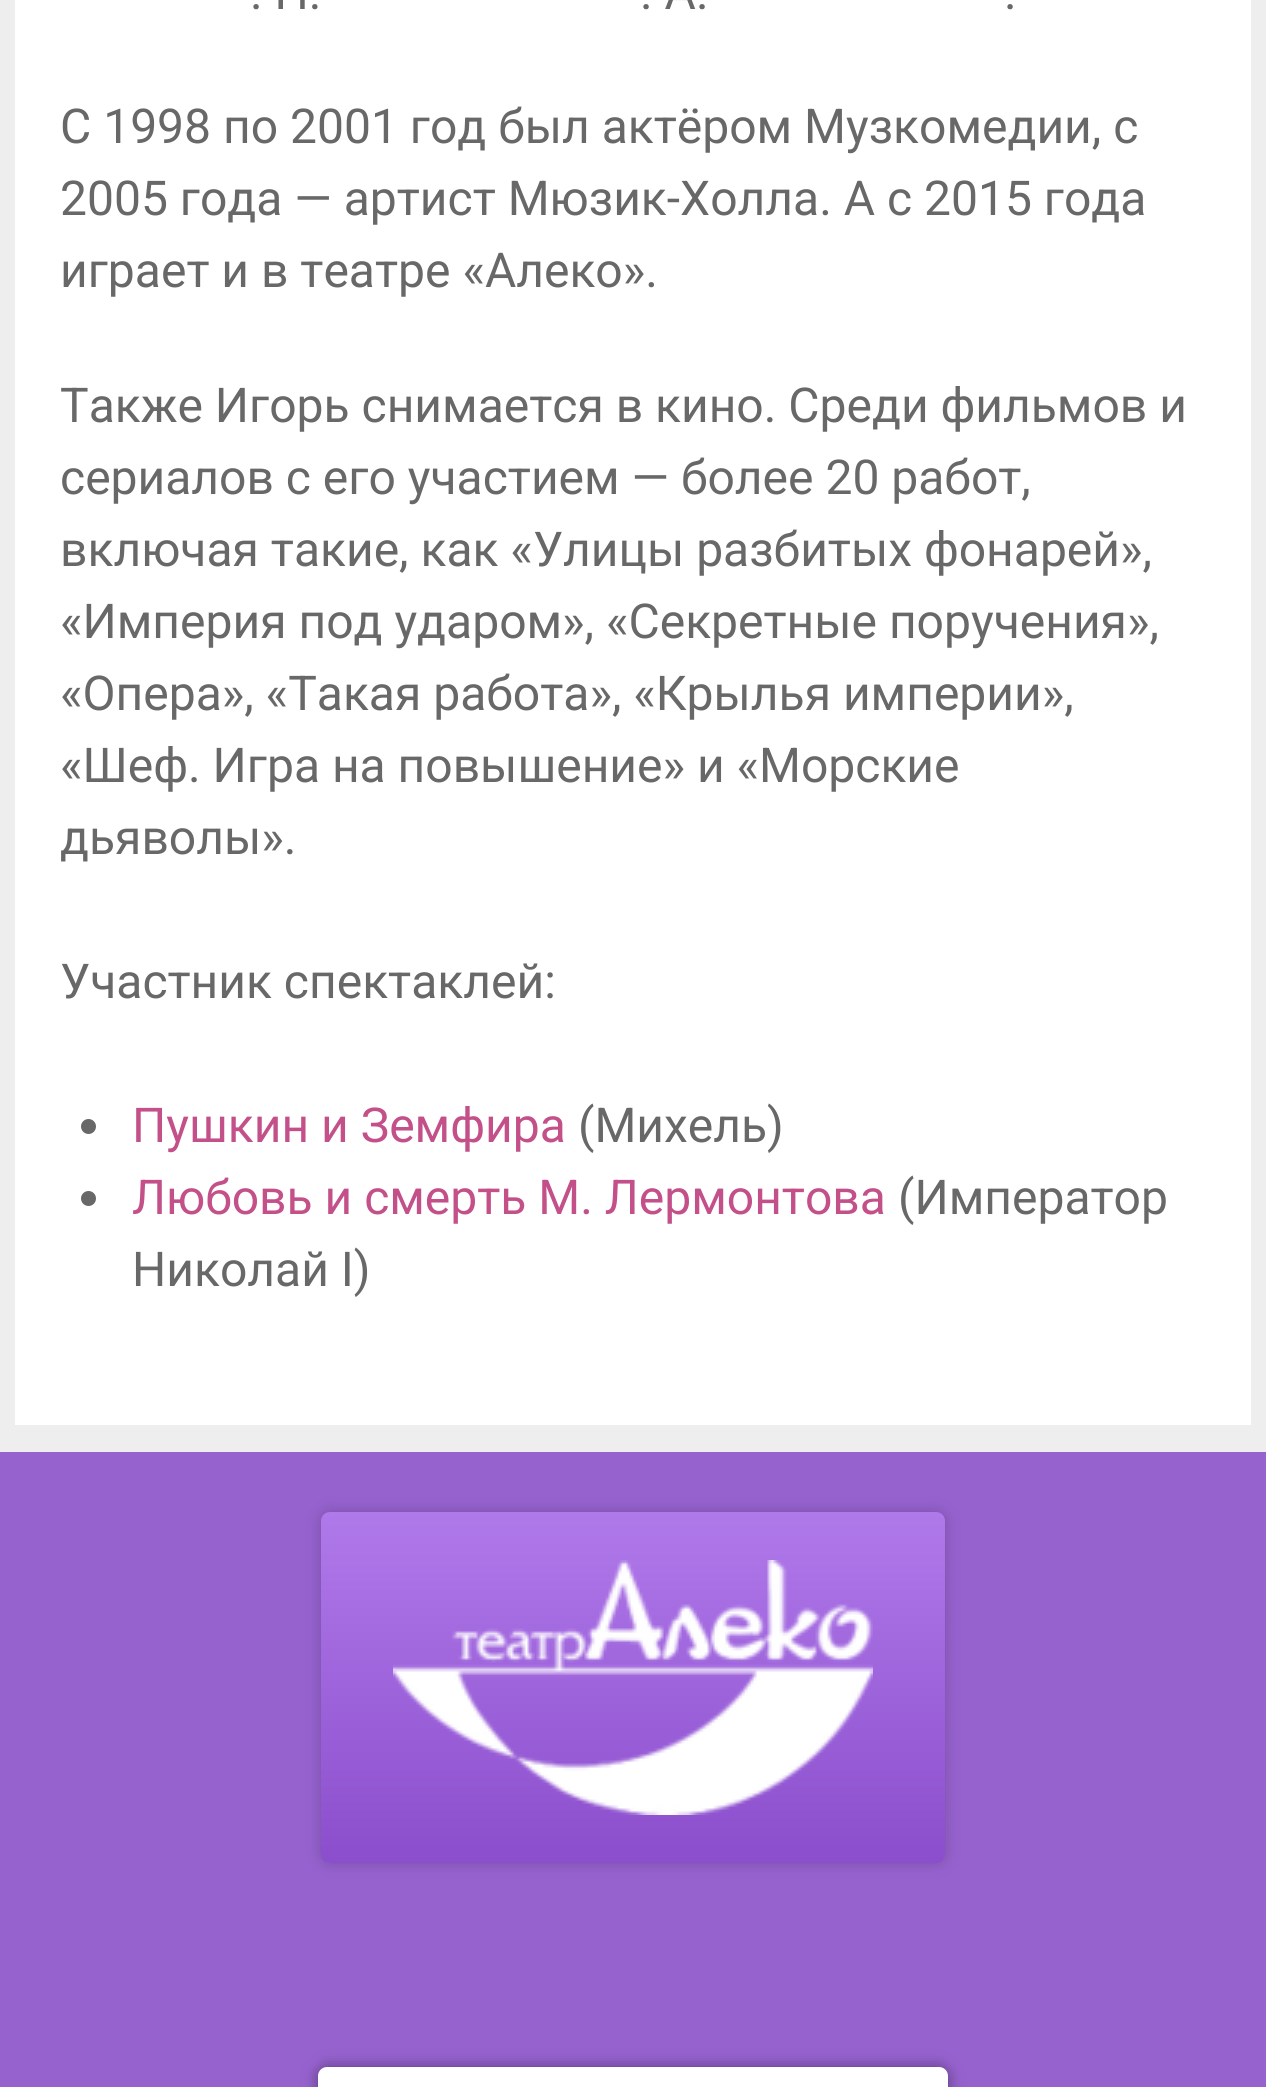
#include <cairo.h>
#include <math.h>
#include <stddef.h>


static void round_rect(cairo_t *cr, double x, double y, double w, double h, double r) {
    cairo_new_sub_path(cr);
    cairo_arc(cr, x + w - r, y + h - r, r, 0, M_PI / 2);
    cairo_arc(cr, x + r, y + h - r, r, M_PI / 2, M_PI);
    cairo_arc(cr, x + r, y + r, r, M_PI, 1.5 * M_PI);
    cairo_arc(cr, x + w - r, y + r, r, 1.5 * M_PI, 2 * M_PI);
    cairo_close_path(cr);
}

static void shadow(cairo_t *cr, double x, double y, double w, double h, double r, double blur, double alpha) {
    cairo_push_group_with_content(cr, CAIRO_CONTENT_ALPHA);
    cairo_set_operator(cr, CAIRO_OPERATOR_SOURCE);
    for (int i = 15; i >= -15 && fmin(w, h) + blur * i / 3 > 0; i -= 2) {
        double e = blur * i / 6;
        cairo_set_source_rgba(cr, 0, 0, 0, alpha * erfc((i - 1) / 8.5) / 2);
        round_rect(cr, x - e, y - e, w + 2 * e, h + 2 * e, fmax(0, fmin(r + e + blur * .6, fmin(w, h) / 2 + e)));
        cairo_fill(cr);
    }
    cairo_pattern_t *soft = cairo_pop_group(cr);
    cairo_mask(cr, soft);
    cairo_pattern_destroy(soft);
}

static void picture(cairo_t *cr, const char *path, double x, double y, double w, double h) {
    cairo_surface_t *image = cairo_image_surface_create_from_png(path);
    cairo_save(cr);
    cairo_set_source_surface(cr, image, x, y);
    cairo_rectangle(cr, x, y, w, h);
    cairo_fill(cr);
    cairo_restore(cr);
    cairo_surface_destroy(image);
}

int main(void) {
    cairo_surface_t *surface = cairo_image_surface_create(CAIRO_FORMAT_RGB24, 1266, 2087);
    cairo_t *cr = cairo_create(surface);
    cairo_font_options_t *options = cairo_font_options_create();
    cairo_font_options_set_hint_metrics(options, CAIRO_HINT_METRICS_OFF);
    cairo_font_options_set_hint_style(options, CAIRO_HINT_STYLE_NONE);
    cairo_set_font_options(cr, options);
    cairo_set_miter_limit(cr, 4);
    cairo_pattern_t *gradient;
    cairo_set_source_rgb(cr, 0.933, 0.933, 0.933);
    cairo_paint(cr);
    cairo_set_source_rgb(cr, 1, 1, 1);
    cairo_rectangle(cr, 15, 0, 1236, 1425);
    cairo_fill(cr);
    cairo_select_font_face(cr, "Roboto", CAIRO_FONT_SLANT_NORMAL, CAIRO_FONT_WEIGHT_NORMAL);
    cairo_set_font_size(cr, 48);
    cairo_set_source_rgb(cr, 0.408, 0.408, 0.408);
    cairo_move_to(cr, 250, 9);
    cairo_show_text(cr, ". Н.");
    cairo_move_to(cr, 640, 9);
    cairo_show_text(cr, ". А.");
    cairo_move_to(cr, 1004, 9);
    cairo_show_text(cr, ".");
    cairo_move_to(cr, 60, 143);
    cairo_show_text(cr, "С 1998 по 2001 год был актёром Музкомедии, с");
    cairo_move_to(cr, 60, 215);
    cairo_show_text(cr, "2005 года — артист Мюзик-Холла. А с 2015 года");
    cairo_move_to(cr, 60, 287);
    cairo_show_text(cr, "играет и в театре «Алеко».");
    cairo_move_to(cr, 60, 422);
    cairo_show_text(cr, "Также Игорь снимается в кино. Среди фильмов и");
    cairo_move_to(cr, 60, 494);
    cairo_show_text(cr, "сериалов с его участием — более 20 работ,");
    cairo_move_to(cr, 60, 566);
    cairo_show_text(cr, "включая такие, как «Улицы разбитых фонарей»,");
    cairo_move_to(cr, 60, 638);
    cairo_show_text(cr, "«Империя под ударом», «Секретные поручения»,");
    cairo_move_to(cr, 60, 710);
    cairo_show_text(cr, "«Опера», «Такая работа», «Крылья империи»,");
    cairo_move_to(cr, 60, 782);
    cairo_show_text(cr, "«Шеф. Игра на повышение» и «Морские");
    cairo_move_to(cr, 60, 854);
    cairo_show_text(cr, "дьяволы».");
    cairo_move_to(cr, 60, 998);
    cairo_show_text(cr, "Участник спектаклей:");
    cairo_new_path(cr);
    cairo_arc(cr, 88.5, 1126.5, 7.5, 0, 2 * M_PI);
    cairo_fill(cr);
    cairo_set_source_rgb(cr, 0.765, 0.314, 0.537);
    cairo_move_to(cr, 132, 1142);
    cairo_show_text(cr, "Пушкин и Земфира");
    cairo_set_source_rgb(cr, 0.408, 0.408, 0.408);
    cairo_move_to(cr, 578, 1142);
    cairo_show_text(cr, "(Михель)");
    cairo_new_path(cr);
    cairo_arc(cr, 88.5, 1198.5, 7.5, 0, 2 * M_PI);
    cairo_fill(cr);
    cairo_set_source_rgb(cr, 0.765, 0.314, 0.537);
    cairo_move_to(cr, 132, 1214);
    cairo_show_text(cr, "Любовь и смерть М. Лермонтова");
    cairo_set_source_rgb(cr, 0.408, 0.408, 0.408);
    cairo_move_to(cr, 898, 1214);
    cairo_show_text(cr, "(Император");
    cairo_move_to(cr, 132, 1286);
    cairo_show_text(cr, "Николай I)");
    cairo_set_source_rgb(cr, 0.588, 0.384, 0.808);
    cairo_rectangle(cr, 0, 1452, 1266, 635);
    cairo_fill(cr);
    cairo_set_source_rgb(cr, 0, 0, 0);
    shadow(cr, 321, 1512, 624, 351, 9, 7.5, 0.2);
    gradient = cairo_pattern_create_linear(633, 1512, 633, 1863);
    cairo_pattern_add_color_stop_rgba(gradient, 0, 0.69, 0.475, 0.918, 1);
    cairo_pattern_add_color_stop_rgba(gradient, 1, 0.545, 0.306, 0.8, 1);
    cairo_set_source(cr, gradient);
    cairo_pattern_destroy(gradient);
    round_rect(cr, 321, 1512, 624, 351, 9);
    cairo_fill(cr);
    picture(cr, "img1.png", 393, 1560, 480, 255);
    cairo_set_source_rgb(cr, 0, 0, 0);
    shadow(cr, 318, 2067, 630, 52, 9, 7.5, 0.4);
    cairo_set_source_rgb(cr, 1, 1, 1);
    round_rect(cr, 318, 2067, 630, 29, 9);
    cairo_fill(cr);
    cairo_surface_write_to_png(surface, "page.png");
    cairo_font_options_destroy(options);
    cairo_destroy(cr);
    cairo_surface_destroy(surface);
    return 0;
}
